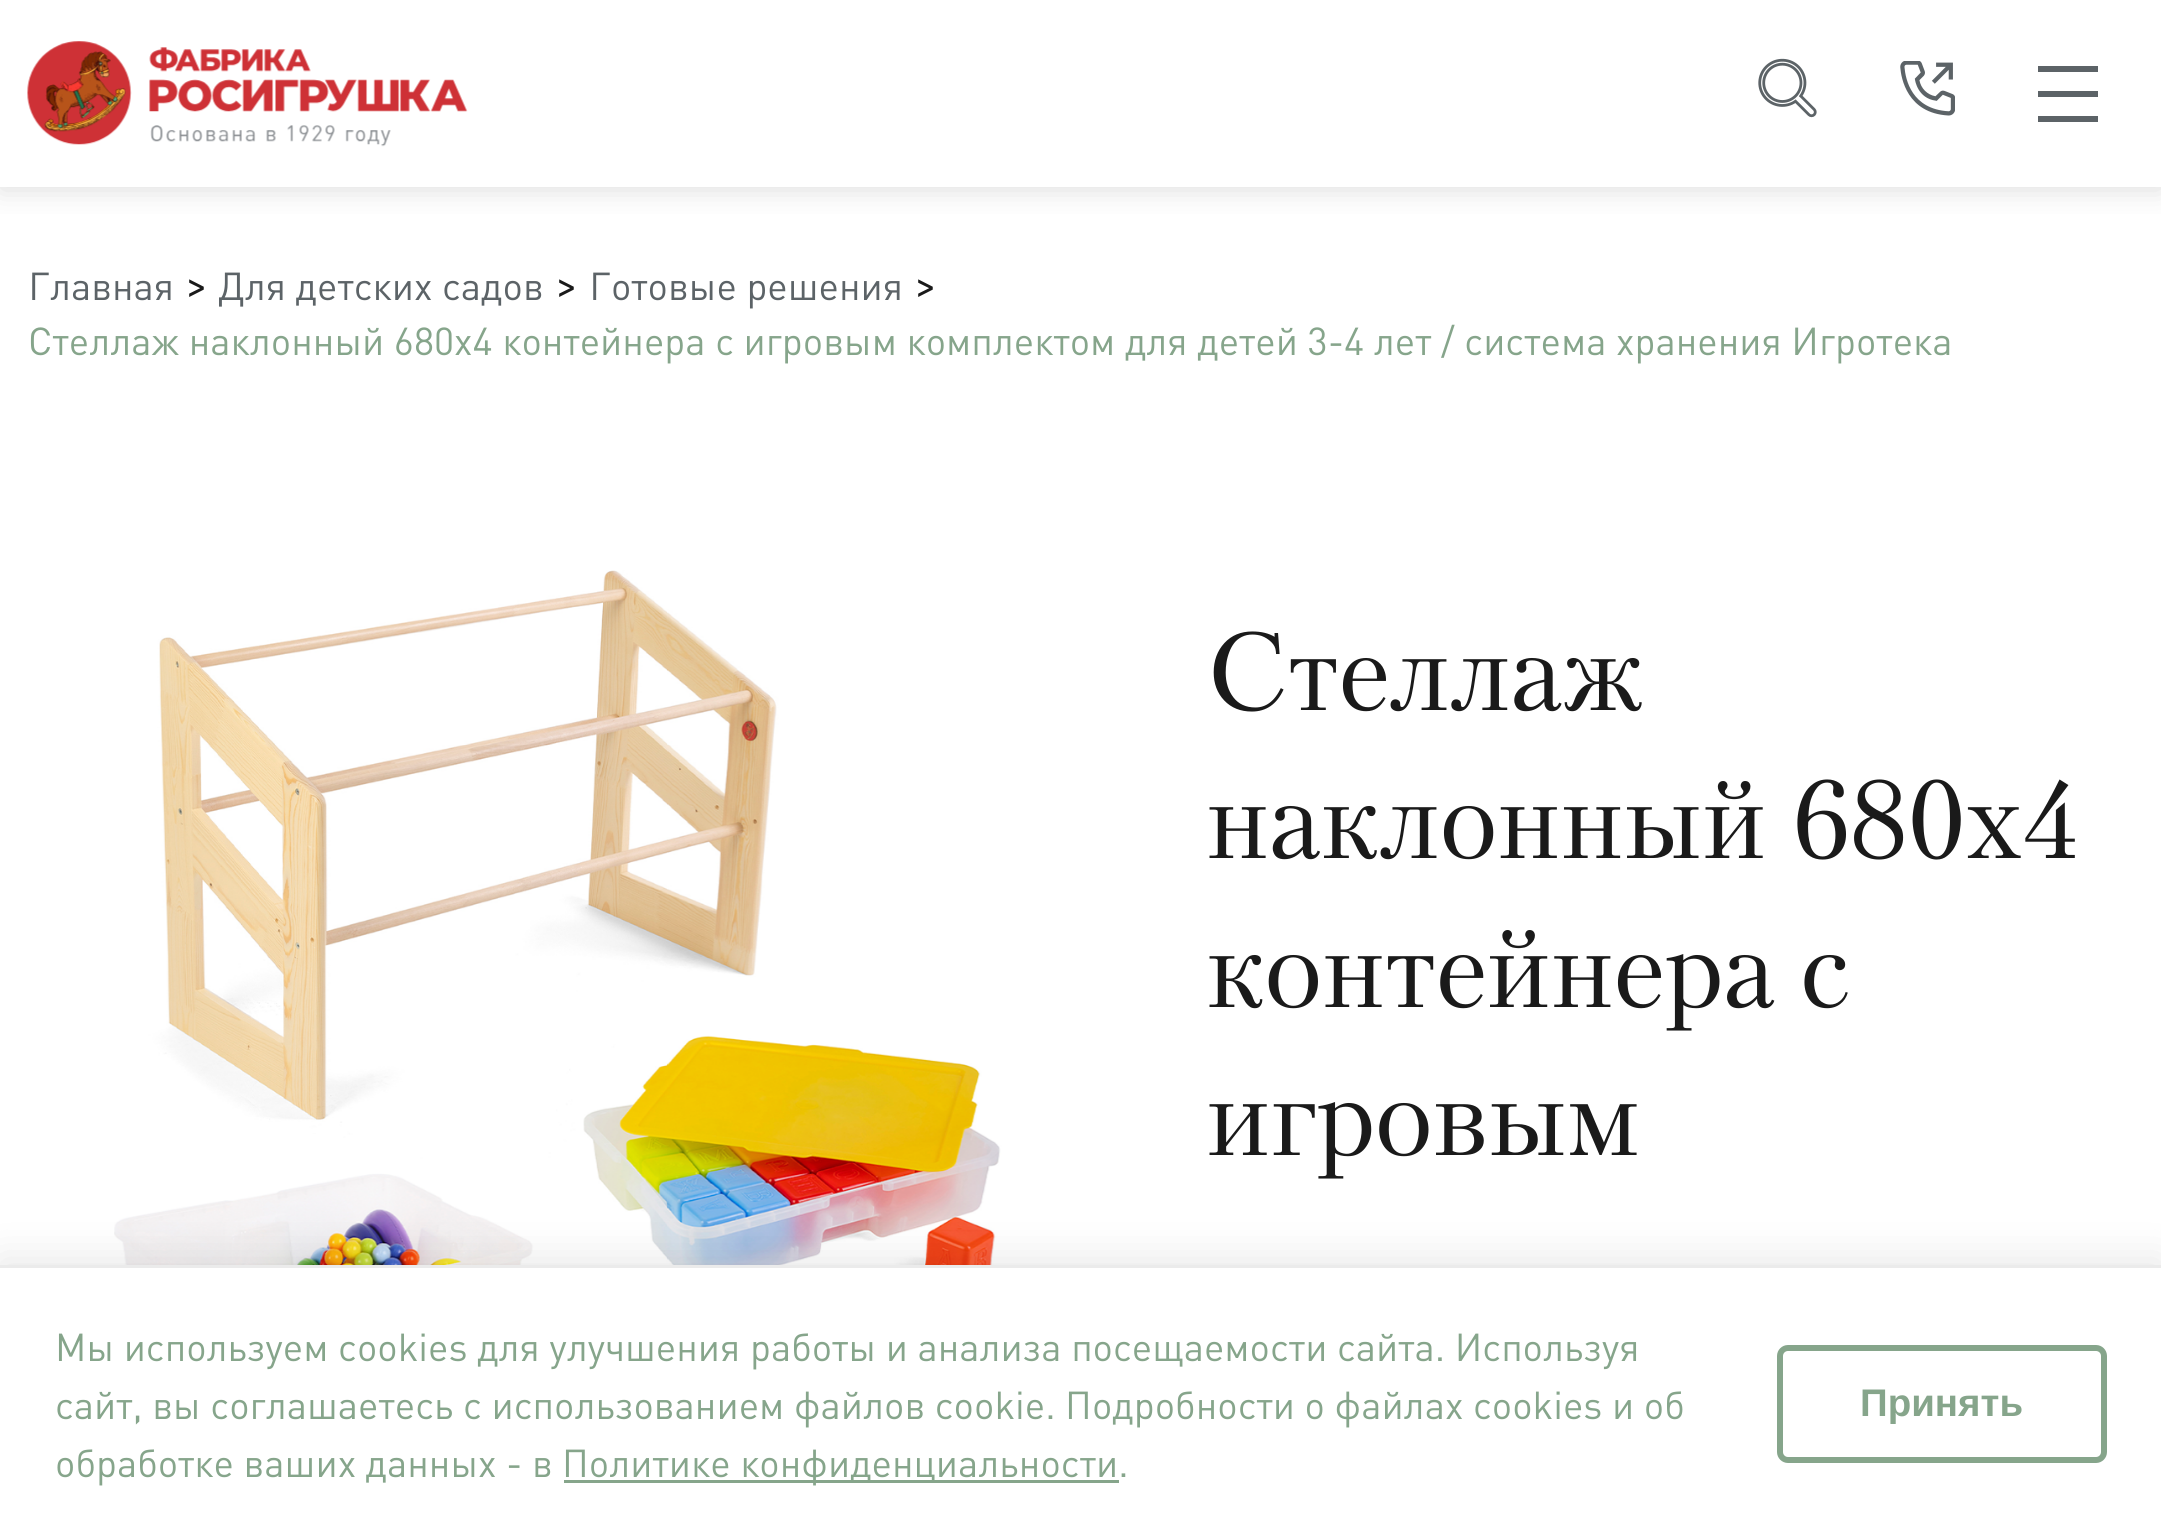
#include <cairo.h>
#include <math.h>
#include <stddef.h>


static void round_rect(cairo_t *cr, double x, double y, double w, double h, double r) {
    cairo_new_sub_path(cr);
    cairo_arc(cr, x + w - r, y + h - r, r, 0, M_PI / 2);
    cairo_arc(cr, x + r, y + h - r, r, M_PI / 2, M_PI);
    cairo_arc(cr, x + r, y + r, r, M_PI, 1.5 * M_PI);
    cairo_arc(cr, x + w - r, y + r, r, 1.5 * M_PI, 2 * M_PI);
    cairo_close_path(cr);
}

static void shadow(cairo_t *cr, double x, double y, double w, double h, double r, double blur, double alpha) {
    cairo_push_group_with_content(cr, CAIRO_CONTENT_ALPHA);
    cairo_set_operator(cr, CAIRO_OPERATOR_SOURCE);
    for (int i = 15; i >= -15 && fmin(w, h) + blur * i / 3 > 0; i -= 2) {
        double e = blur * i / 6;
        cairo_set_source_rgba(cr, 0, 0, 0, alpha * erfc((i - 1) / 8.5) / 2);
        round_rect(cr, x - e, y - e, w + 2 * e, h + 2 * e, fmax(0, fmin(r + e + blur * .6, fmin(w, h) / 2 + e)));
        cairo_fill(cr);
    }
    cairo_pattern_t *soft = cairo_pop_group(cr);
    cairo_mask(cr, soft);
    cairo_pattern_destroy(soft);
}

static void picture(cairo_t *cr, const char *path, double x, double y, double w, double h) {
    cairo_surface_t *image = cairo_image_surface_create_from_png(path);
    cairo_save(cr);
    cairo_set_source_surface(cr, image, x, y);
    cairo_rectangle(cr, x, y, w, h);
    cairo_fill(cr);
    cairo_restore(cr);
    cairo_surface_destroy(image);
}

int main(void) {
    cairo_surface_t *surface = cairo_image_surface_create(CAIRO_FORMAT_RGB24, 2161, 1538);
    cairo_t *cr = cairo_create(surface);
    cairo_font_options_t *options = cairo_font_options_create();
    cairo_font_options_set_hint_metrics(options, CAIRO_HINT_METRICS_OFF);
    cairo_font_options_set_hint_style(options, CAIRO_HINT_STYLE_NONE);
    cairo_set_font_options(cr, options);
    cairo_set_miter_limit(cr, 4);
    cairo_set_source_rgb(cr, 1, 1, 1);
    cairo_paint(cr);
    cairo_save(cr);
    cairo_rectangle(cr, 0, 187, 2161, 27);
    cairo_clip(cr);
    cairo_set_source_rgb(cr, 0.741, 0.741, 0.741);
    shadow(cr, 0, 3, 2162, 187, 0, 14, 0.5);
    cairo_restore(cr);
    picture(cr, "img1.png", 27, 41, 441, 106);
    picture(cr, "img2.png", 1758, 58, 59, 60);
    picture(cr, "img3.png", 1900, 61, 55, 55);
    cairo_set_source_rgb(cr, 0.361, 0.388, 0.404);
    cairo_rectangle(cr, 2038, 66, 60, 6);
    cairo_fill(cr);
    cairo_rectangle(cr, 2038, 91, 60, 6);
    cairo_fill(cr);
    cairo_rectangle(cr, 2038, 116, 60, 6);
    cairo_fill(cr);
    cairo_select_font_face(cr, "DIN", CAIRO_FONT_SLANT_NORMAL, CAIRO_FONT_WEIGHT_NORMAL);
    cairo_set_font_size(cr, 38.5);
    cairo_move_to(cr, 28, 300);
    cairo_show_text(cr, "Главная");
    cairo_set_font_size(cr, 44);
    cairo_set_source_rgb(cr, 0.102, 0.102, 0.102);
    cairo_move_to(cr, 185, 300);
    cairo_show_text(cr, ">");
    cairo_set_font_size(cr, 38.5);
    cairo_set_source_rgb(cr, 0.361, 0.388, 0.404);
    cairo_move_to(cr, 218, 300);
    cairo_show_text(cr, "Для детских садов");
    cairo_set_font_size(cr, 44);
    cairo_set_source_rgb(cr, 0.102, 0.102, 0.102);
    cairo_move_to(cr, 555, 300);
    cairo_show_text(cr, ">");
    cairo_set_font_size(cr, 38.5);
    cairo_set_source_rgb(cr, 0.361, 0.388, 0.404);
    cairo_move_to(cr, 589, 300);
    cairo_show_text(cr, "Готовые решения");
    cairo_set_font_size(cr, 44);
    cairo_set_source_rgb(cr, 0.102, 0.102, 0.102);
    cairo_move_to(cr, 914, 300);
    cairo_show_text(cr, ">");
    cairo_set_font_size(cr, 38.5);
    cairo_set_source_rgb(cr, 0.525, 0.647, 0.545);
    cairo_move_to(cr, 28, 355);
    cairo_show_text(cr, "Стеллаж наклонный 680х4 контейнера с игровым комплектом для детей 3-4 лет / система хранения Игротека");
    picture(cr, "img4.png", 114, 570, 903, 695);
    cairo_select_font_face(cr, "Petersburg", CAIRO_FONT_SLANT_NORMAL, CAIRO_FONT_WEIGHT_NORMAL);
    cairo_set_font_size(cr, 110);
    cairo_set_source_rgb(cr, 0.102, 0.102, 0.102);
    cairo_move_to(cr, 1206, 710);
    cairo_show_text(cr, "Стеллаж");
    cairo_move_to(cr, 1206, 858);
    cairo_show_text(cr, "наклонный 680х4");
    cairo_move_to(cr, 1206, 1007);
    cairo_show_text(cr, "контейнера с");
    cairo_move_to(cr, 1206, 1155);
    cairo_show_text(cr, "игровым");
    cairo_set_source_rgb(cr, 0, 0, 0);
    shadow(cr, 0, 1260, 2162, 275, 0, 20.5, 0.1);
    cairo_set_source_rgb(cr, 1, 1, 1);
    cairo_rectangle(cr, 0, 1268, 2161, 270);
    cairo_fill(cr);
    cairo_set_source_rgb(cr, 0.918, 0.918, 0.918);
    cairo_rectangle(cr, 0, 1265, 2161, 3);
    cairo_fill(cr);
    cairo_select_font_face(cr, "DIN", CAIRO_FONT_SLANT_NORMAL, CAIRO_FONT_WEIGHT_NORMAL);
    cairo_set_font_size(cr, 38.5);
    cairo_set_source_rgb(cr, 0.525, 0.647, 0.545);
    cairo_move_to(cr, 55, 1361);
    cairo_show_text(cr, "Мы используем cookies для улучшения работы и анализа посещаемости сайта. Используя");
    cairo_move_to(cr, 55, 1419);
    cairo_show_text(cr, "сайт, вы соглашаетесь с использованием файлов cookie. Подробности о файлах cookies и об");
    cairo_move_to(cr, 55, 1477);
    cairo_show_text(cr, "обработке ваших данных - в");
    cairo_rectangle(cr, 564, 1480, 555, 3);
    cairo_fill(cr);
    cairo_move_to(cr, 562, 1477);
    cairo_show_text(cr, "Политике конфиденциальности.");
    round_rect(cr, 1780, 1348, 324, 112, 8);
    cairo_set_line_width(cr, 6);
    cairo_stroke(cr);
    cairo_select_font_face(cr, "Liberation Sans", CAIRO_FONT_SLANT_NORMAL, CAIRO_FONT_WEIGHT_BOLD);
    cairo_move_to(cr, 1860, 1416);
    cairo_show_text(cr, "Принять");
    cairo_surface_write_to_png(surface, "page.png");
    cairo_font_options_destroy(options);
    cairo_destroy(cr);
    cairo_surface_destroy(surface);
    return 0;
}
